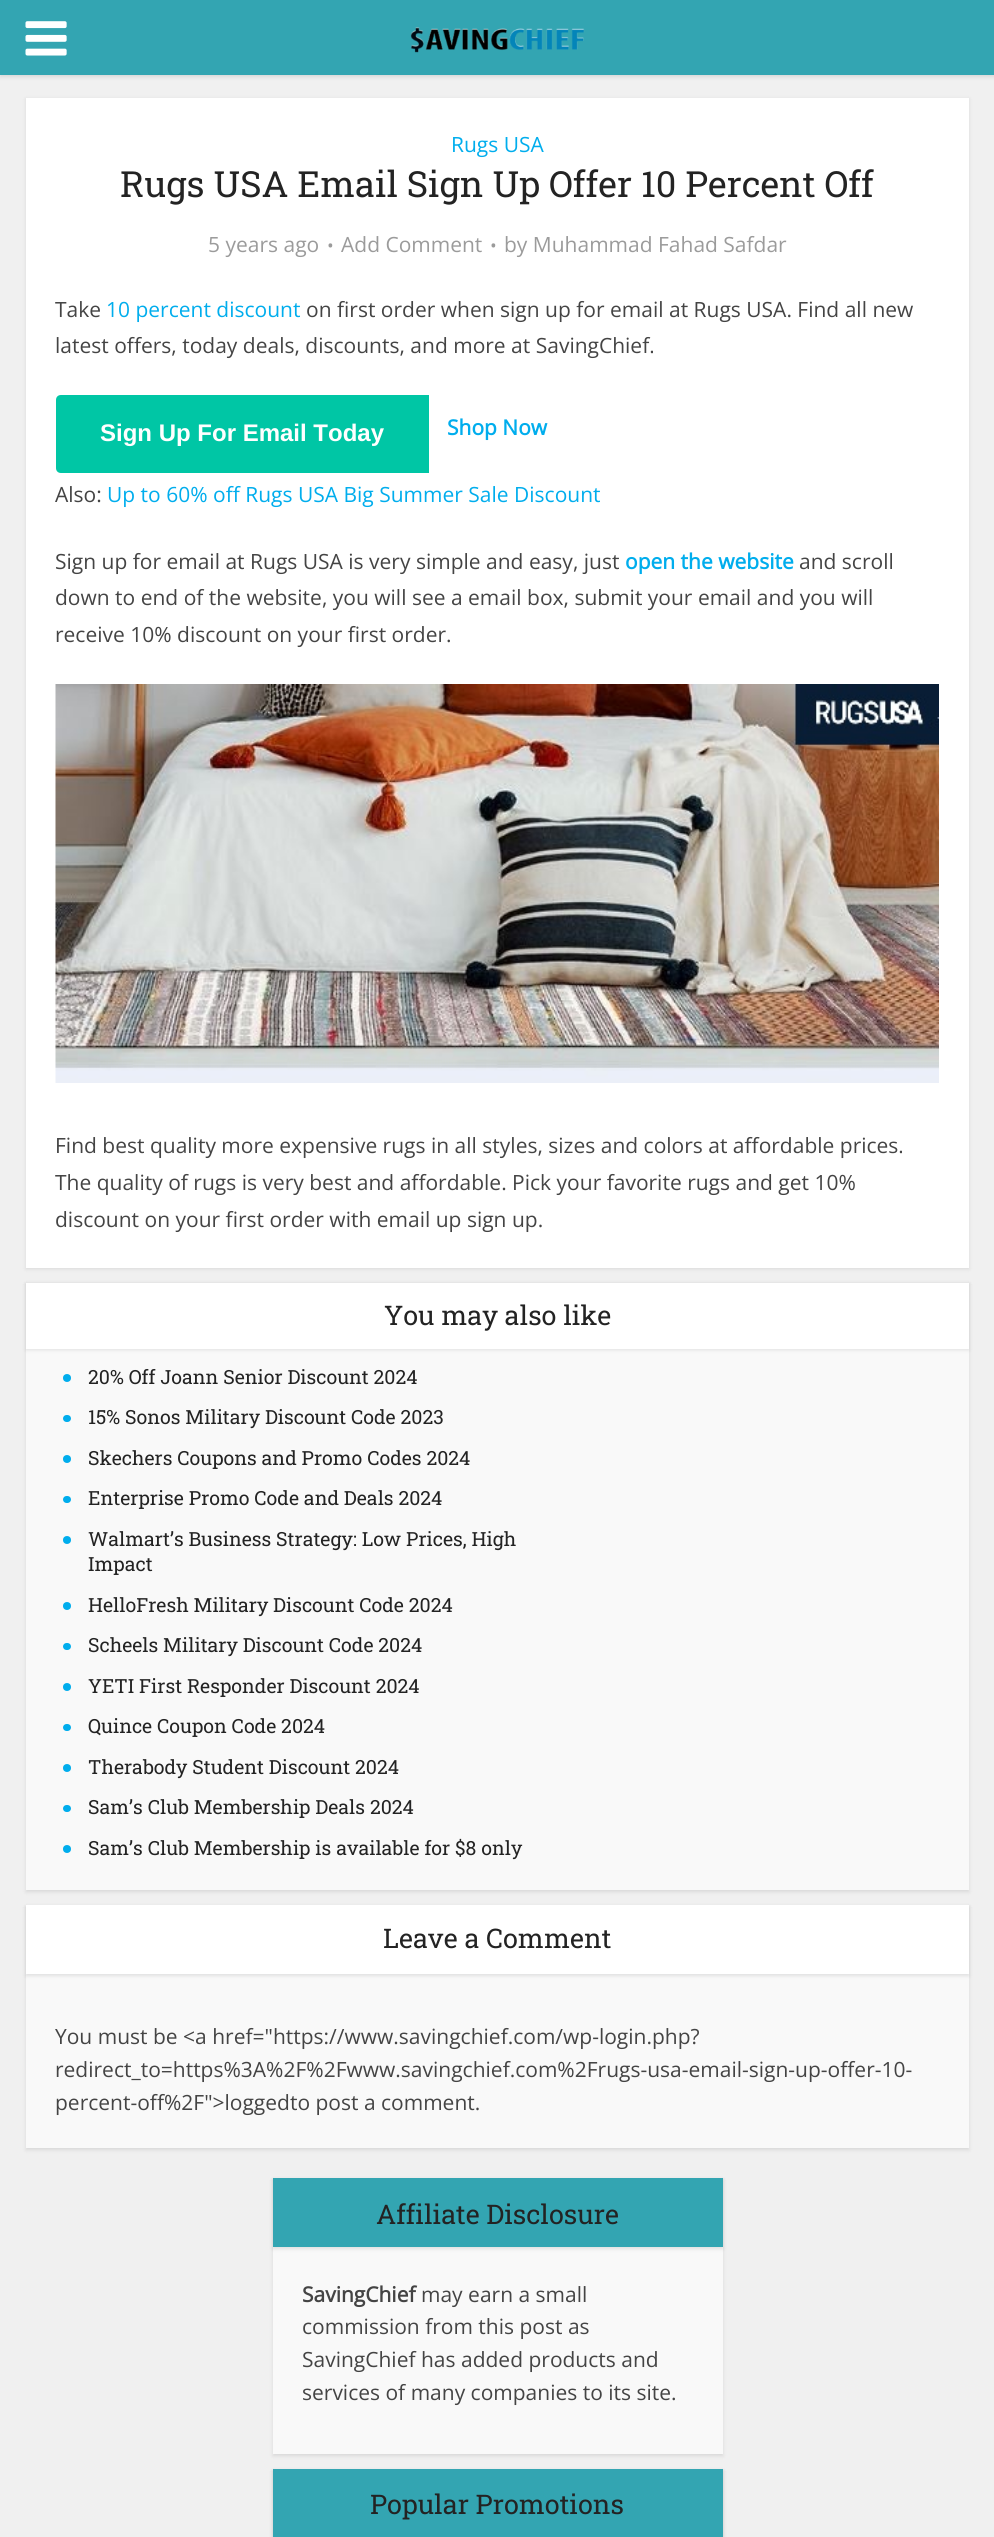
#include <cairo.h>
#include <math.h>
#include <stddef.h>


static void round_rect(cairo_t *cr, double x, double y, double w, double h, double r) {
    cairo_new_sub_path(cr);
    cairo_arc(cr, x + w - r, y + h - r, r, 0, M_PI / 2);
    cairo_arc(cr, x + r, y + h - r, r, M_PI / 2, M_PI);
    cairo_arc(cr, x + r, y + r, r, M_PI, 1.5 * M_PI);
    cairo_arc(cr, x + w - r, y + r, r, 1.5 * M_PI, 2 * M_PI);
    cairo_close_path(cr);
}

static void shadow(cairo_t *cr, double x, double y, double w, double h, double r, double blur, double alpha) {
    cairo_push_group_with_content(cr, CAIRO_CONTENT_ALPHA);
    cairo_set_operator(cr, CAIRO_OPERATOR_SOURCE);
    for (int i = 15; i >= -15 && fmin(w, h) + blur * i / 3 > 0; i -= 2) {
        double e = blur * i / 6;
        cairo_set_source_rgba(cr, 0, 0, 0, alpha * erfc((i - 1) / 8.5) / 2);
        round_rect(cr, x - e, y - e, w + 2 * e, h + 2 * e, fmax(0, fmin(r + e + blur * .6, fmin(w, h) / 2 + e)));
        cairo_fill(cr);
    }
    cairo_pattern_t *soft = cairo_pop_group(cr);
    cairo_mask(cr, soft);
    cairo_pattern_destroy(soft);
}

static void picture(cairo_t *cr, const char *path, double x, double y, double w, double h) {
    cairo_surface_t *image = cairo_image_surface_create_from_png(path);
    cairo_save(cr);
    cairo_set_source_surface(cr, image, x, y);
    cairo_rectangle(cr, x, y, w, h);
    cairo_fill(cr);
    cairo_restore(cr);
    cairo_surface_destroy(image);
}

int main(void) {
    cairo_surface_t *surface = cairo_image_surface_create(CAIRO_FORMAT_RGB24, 994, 2537);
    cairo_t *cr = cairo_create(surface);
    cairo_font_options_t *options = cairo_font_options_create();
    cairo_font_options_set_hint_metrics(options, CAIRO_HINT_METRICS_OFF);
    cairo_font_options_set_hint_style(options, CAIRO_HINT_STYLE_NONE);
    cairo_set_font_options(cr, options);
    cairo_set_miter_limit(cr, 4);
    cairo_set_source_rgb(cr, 0.941, 0.941, 0.941);
    cairo_paint(cr);
    cairo_set_source_rgb(cr, 0, 0, 0);
    shadow(cr, 0, 2, 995, 75, 0, 2, 0.1);
    cairo_set_source_rgb(cr, 0.2, 0.647, 0.698);
    cairo_rectangle(cr, 0, 0, 994, 75);
    cairo_fill(cr);
    picture(cr, "img1.png", 25, 21, 42, 35);
    picture(cr, "img2.png", 410, 27, 175, 26);
    cairo_set_source_rgb(cr, 0, 0, 0);
    shadow(cr, 26, 99, 943, 1170, 0, 2, 0.1);
    cairo_set_source_rgb(cr, 1, 1, 1);
    cairo_rectangle(cr, 26, 98, 943, 1170);
    cairo_fill(cr);
    cairo_select_font_face(cr, "Open Sans", CAIRO_FONT_SLANT_NORMAL, CAIRO_FONT_WEIGHT_NORMAL);
    cairo_set_font_size(cr, 21);
    cairo_set_source_rgb(cr, 0, 0.678, 0.929);
    cairo_move_to(cr, 451, 152);
    cairo_show_text(cr, "Rugs USA");
    cairo_select_font_face(cr, "Roboto Slab", CAIRO_FONT_SLANT_NORMAL, CAIRO_FONT_WEIGHT_NORMAL);
    cairo_set_font_size(cr, 36);
    cairo_set_source_rgb(cr, 0.137, 0.137, 0.137);
    cairo_move_to(cr, 120, 197);
    cairo_show_text(cr, "Rugs USA Email Sign Up Offer 10 Percent Off");
    cairo_select_font_face(cr, "Open Sans", CAIRO_FONT_SLANT_NORMAL, CAIRO_FONT_WEIGHT_NORMAL);
    cairo_set_font_size(cr, 21);
    cairo_set_source_rgb(cr, 0.608, 0.608, 0.608);
    cairo_move_to(cr, 208, 252);
    cairo_show_text(cr, "5 years ago");
    cairo_set_font_size(cr, 18);
    cairo_move_to(cr, 327, 252);
    cairo_show_text(cr, "•");
    cairo_set_font_size(cr, 21);
    cairo_move_to(cr, 341, 252);
    cairo_show_text(cr, "Add Comment");
    cairo_set_font_size(cr, 18);
    cairo_move_to(cr, 490, 252);
    cairo_show_text(cr, "•");
    cairo_set_font_size(cr, 21);
    cairo_move_to(cr, 504, 252);
    cairo_show_text(cr, "by Muhammad Fahad Safdar");
    cairo_set_source_rgb(cr, 0.267, 0.267, 0.267);
    cairo_move_to(cr, 55, 317);
    cairo_show_text(cr, "Take");
    cairo_set_source_rgb(cr, 0, 0.678, 0.929);
    cairo_move_to(cr, 106, 317);
    cairo_show_text(cr, "10 percent discount");
    cairo_set_source_rgb(cr, 0.267, 0.267, 0.267);
    cairo_move_to(cr, 306, 317);
    cairo_show_text(cr, "on first order when sign up for email at Rugs USA. Find all new");
    cairo_move_to(cr, 55, 353);
    cairo_show_text(cr, "latest offers, today deals, discounts, and more at SavingChief.");
    cairo_set_source_rgb(cr, 0, 0.776, 0.647);
    cairo_new_path(cr);
    cairo_move_to(cr, 61, 395);
    cairo_line_to(cr, 429, 395);
    cairo_line_to(cr, 429, 473);
    cairo_line_to(cr, 61, 473);
    cairo_curve_to(cr, 58, 473, 56, 471, 56, 468);
    cairo_line_to(cr, 56, 400);
    cairo_curve_to(cr, 56, 397, 58, 395, 61, 395);
    cairo_close_path(cr);
    cairo_fill(cr);
    cairo_select_font_face(cr, "Liberation Sans", CAIRO_FONT_SLANT_NORMAL, CAIRO_FONT_WEIGHT_BOLD);
    cairo_set_font_size(cr, 24);
    cairo_set_source_rgb(cr, 1, 1, 1);
    cairo_move_to(cr, 100, 441);
    cairo_show_text(cr, "Sign Up For Email Today");
    cairo_select_font_face(cr, "Open Sans", CAIRO_FONT_SLANT_NORMAL, CAIRO_FONT_WEIGHT_BOLD);
    cairo_set_font_size(cr, 21);
    cairo_set_source_rgb(cr, 0, 0.678, 0.929);
    cairo_move_to(cr, 447, 435);
    cairo_show_text(cr, "Shop Now");
    cairo_select_font_face(cr, "Open Sans", CAIRO_FONT_SLANT_NORMAL, CAIRO_FONT_WEIGHT_NORMAL);
    cairo_set_source_rgb(cr, 0.267, 0.267, 0.267);
    cairo_move_to(cr, 55, 502);
    cairo_show_text(cr, "Also:");
    cairo_set_source_rgb(cr, 0, 0.678, 0.929);
    cairo_move_to(cr, 107, 502);
    cairo_show_text(cr, "Up to 60% off Rugs USA Big Summer Sale Discount");
    cairo_set_source_rgb(cr, 0.267, 0.267, 0.267);
    cairo_move_to(cr, 55, 569);
    cairo_show_text(cr, "Sign up for email at Rugs USA is very simple and easy, just");
    cairo_select_font_face(cr, "Open Sans", CAIRO_FONT_SLANT_NORMAL, CAIRO_FONT_WEIGHT_BOLD);
    cairo_set_source_rgb(cr, 0, 0.678, 0.929);
    cairo_move_to(cr, 625, 569);
    cairo_show_text(cr, "open the website");
    cairo_select_font_face(cr, "Open Sans", CAIRO_FONT_SLANT_NORMAL, CAIRO_FONT_WEIGHT_NORMAL);
    cairo_set_source_rgb(cr, 0.267, 0.267, 0.267);
    cairo_move_to(cr, 799, 569);
    cairo_show_text(cr, "and scroll");
    cairo_move_to(cr, 55, 605);
    cairo_show_text(cr, "down to end of the website, you will see a email box, submit your email and you will");
    cairo_move_to(cr, 55, 642);
    cairo_show_text(cr, "receive 10% discount on your first order.");
    picture(cr, "img3.png", 55, 684, 884, 399);
    cairo_move_to(cr, 55, 1153);
    cairo_show_text(cr, "Find best quality more expensive rugs in all styles, sizes and colors at affordable prices.");
    cairo_move_to(cr, 55, 1190);
    cairo_show_text(cr, "The quality of rugs is very best and affordable. Pick your favorite rugs and get 10%");
    cairo_move_to(cr, 55, 1227);
    cairo_show_text(cr, "discount on your first order with email up sign up.");
    cairo_set_source_rgb(cr, 0, 0, 0);
    shadow(cr, 26, 1284, 943, 608, 0, 2, 0.1);
    cairo_set_source_rgb(cr, 0.976, 0.976, 0.976);
    cairo_rectangle(cr, 26, 1349, 943, 541);
    cairo_fill(cr);
    cairo_set_source_rgb(cr, 0, 0, 0);
    shadow(cr, 26, 1284, 943, 66, 0, 2, 0.1);
    cairo_set_source_rgb(cr, 1, 1, 1);
    cairo_rectangle(cr, 26, 1283, 943, 66);
    cairo_fill(cr);
    cairo_select_font_face(cr, "Roboto Slab", CAIRO_FONT_SLANT_NORMAL, CAIRO_FONT_WEIGHT_NORMAL);
    cairo_set_font_size(cr, 27);
    cairo_set_source_rgb(cr, 0.137, 0.137, 0.137);
    cairo_move_to(cr, 384, 1325);
    cairo_show_text(cr, "You may also like");
    cairo_set_source_rgb(cr, 0, 0.678, 0.929);
    cairo_new_path(cr);
    cairo_arc(cr, 67, 1378, 4, 0, 2 * M_PI);
    cairo_fill(cr);
    cairo_set_font_size(cr, 19.5);
    cairo_set_source_rgb(cr, 0.137, 0.137, 0.137);
    cairo_move_to(cr, 88, 1384);
    cairo_show_text(cr, "20% Off Joann Senior Discount 2024");
    cairo_set_source_rgb(cr, 0, 0.678, 0.929);
    round_rect(cr, 63, 1415, 8, 7, 3.5);
    cairo_fill(cr);
    cairo_set_source_rgb(cr, 0.137, 0.137, 0.137);
    cairo_move_to(cr, 88, 1424);
    cairo_show_text(cr, "15% Sonos Military Discount Code 2023");
    cairo_set_source_rgb(cr, 0, 0.678, 0.929);
    cairo_new_path(cr);
    cairo_arc(cr, 67, 1459, 4, 0, 2 * M_PI);
    cairo_fill(cr);
    cairo_set_source_rgb(cr, 0.137, 0.137, 0.137);
    cairo_move_to(cr, 88, 1465);
    cairo_show_text(cr, "Skechers Coupons and Promo Codes 2024");
    cairo_set_source_rgb(cr, 0, 0.678, 0.929);
    round_rect(cr, 63, 1496, 8, 7, 3.5);
    cairo_fill(cr);
    cairo_set_source_rgb(cr, 0.137, 0.137, 0.137);
    cairo_move_to(cr, 88, 1505);
    cairo_show_text(cr, "Enterprise Promo Code and Deals 2024");
    cairo_set_source_rgb(cr, 0, 0.678, 0.929);
    cairo_new_path(cr);
    cairo_arc(cr, 67, 1540, 4, 0, 2 * M_PI);
    cairo_fill(cr);
    cairo_set_source_rgb(cr, 0.137, 0.137, 0.137);
    cairo_move_to(cr, 88, 1546);
    cairo_show_text(cr, "Walmart’s Business Strategy: Low Prices, High");
    cairo_move_to(cr, 88, 1571);
    cairo_show_text(cr, "Impact");
    cairo_set_source_rgb(cr, 0, 0.678, 0.929);
    cairo_new_path(cr);
    cairo_arc(cr, 67, 1606, 4, 0, 2 * M_PI);
    cairo_fill(cr);
    cairo_set_source_rgb(cr, 0.137, 0.137, 0.137);
    cairo_move_to(cr, 88, 1612);
    cairo_show_text(cr, "HelloFresh Military Discount Code 2024");
    cairo_set_source_rgb(cr, 0, 0.678, 0.929);
    round_rect(cr, 63, 1643, 8, 7, 3.5);
    cairo_fill(cr);
    cairo_set_source_rgb(cr, 0.137, 0.137, 0.137);
    cairo_move_to(cr, 88, 1652);
    cairo_show_text(cr, "Scheels Military Discount Code 2024");
    cairo_set_source_rgb(cr, 0, 0.678, 0.929);
    cairo_new_path(cr);
    cairo_arc(cr, 67, 1687, 4, 0, 2 * M_PI);
    cairo_fill(cr);
    cairo_set_source_rgb(cr, 0.137, 0.137, 0.137);
    cairo_move_to(cr, 88, 1693);
    cairo_show_text(cr, "YETI First Responder Discount 2024");
    cairo_set_source_rgb(cr, 0, 0.678, 0.929);
    round_rect(cr, 63, 1724, 8, 7, 3.5);
    cairo_fill(cr);
    cairo_set_source_rgb(cr, 0.137, 0.137, 0.137);
    cairo_move_to(cr, 88, 1733);
    cairo_show_text(cr, "Quince Coupon Code 2024");
    cairo_set_source_rgb(cr, 0, 0.678, 0.929);
    cairo_new_path(cr);
    cairo_arc(cr, 67, 1768, 4, 0, 2 * M_PI);
    cairo_fill(cr);
    cairo_set_source_rgb(cr, 0.137, 0.137, 0.137);
    cairo_move_to(cr, 88, 1774);
    cairo_show_text(cr, "Therabody Student Discount 2024");
    cairo_set_source_rgb(cr, 0, 0.678, 0.929);
    round_rect(cr, 63, 1805, 8, 7, 3.5);
    cairo_fill(cr);
    cairo_set_source_rgb(cr, 0.137, 0.137, 0.137);
    cairo_move_to(cr, 88, 1814);
    cairo_show_text(cr, "Sam’s Club Membership Deals 2024");
    cairo_set_source_rgb(cr, 0, 0.678, 0.929);
    cairo_new_path(cr);
    cairo_arc(cr, 67, 1849, 4, 0, 2 * M_PI);
    cairo_fill(cr);
    cairo_set_source_rgb(cr, 0.137, 0.137, 0.137);
    cairo_move_to(cr, 88, 1855);
    cairo_show_text(cr, "Sam’s Club Membership is available for $8 only");
    cairo_set_source_rgb(cr, 0, 0, 0);
    shadow(cr, 26, 1907, 943, 243, 0, 2, 0.1);
    cairo_set_source_rgb(cr, 0.976, 0.976, 0.976);
    cairo_rectangle(cr, 26, 1974, 943, 174);
    cairo_fill(cr);
    cairo_set_source_rgb(cr, 0, 0, 0);
    shadow(cr, 26, 1907, 943, 69, 0, 2, 0.1);
    cairo_set_source_rgb(cr, 1, 1, 1);
    cairo_rectangle(cr, 26, 1905, 943, 69);
    cairo_fill(cr);
    cairo_set_font_size(cr, 27);
    cairo_set_source_rgb(cr, 0.137, 0.137, 0.137);
    cairo_move_to(cr, 383, 1948);
    cairo_show_text(cr, "Leave a Comment");
    cairo_select_font_face(cr, "Open Sans", CAIRO_FONT_SLANT_NORMAL, CAIRO_FONT_WEIGHT_NORMAL);
    cairo_set_font_size(cr, 21);
    cairo_set_source_rgb(cr, 0.267, 0.267, 0.267);
    cairo_move_to(cr, 55, 2044);
    cairo_show_text(cr, "You must be <a href=\"https://www.savingchief.com/wp-login.php?");
    cairo_move_to(cr, 55, 2077);
    cairo_show_text(cr, "redirect_to=https%3A%2F%2Fwww.savingchief.com%2Frugs-usa-email-sign-up-offer-10-");
    cairo_move_to(cr, 55, 2110);
    cairo_show_text(cr, "percent-off%2F\">loggedto post a comment.");
    cairo_set_source_rgb(cr, 0, 0, 0);
    shadow(cr, 273, 2180, 450, 276, 0, 2, 0.1);
    cairo_set_source_rgb(cr, 0.976, 0.976, 0.976);
    cairo_rectangle(cr, 273, 2247, 450, 207);
    cairo_fill(cr);
    cairo_set_source_rgb(cr, 0, 0, 0);
    shadow(cr, 273, 2180, 450, 69, 0, 2, 0.1);
    cairo_set_source_rgb(cr, 0.2, 0.647, 0.698);
    cairo_rectangle(cr, 273, 2178, 450, 69);
    cairo_fill(cr);
    cairo_select_font_face(cr, "Roboto Slab", CAIRO_FONT_SLANT_NORMAL, CAIRO_FONT_WEIGHT_NORMAL);
    cairo_set_font_size(cr, 27);
    cairo_set_source_rgb(cr, 0.137, 0.137, 0.137);
    cairo_move_to(cr, 376, 2224);
    cairo_show_text(cr, "Affiliate Disclosure");
    cairo_select_font_face(cr, "Open Sans", CAIRO_FONT_SLANT_NORMAL, CAIRO_FONT_WEIGHT_BOLD);
    cairo_set_font_size(cr, 21);
    cairo_set_source_rgb(cr, 0.267, 0.267, 0.267);
    cairo_move_to(cr, 302, 2302);
    cairo_show_text(cr, "SavingChief");
    cairo_select_font_face(cr, "Open Sans", CAIRO_FONT_SLANT_NORMAL, CAIRO_FONT_WEIGHT_NORMAL);
    cairo_move_to(cr, 421, 2302);
    cairo_show_text(cr, "may earn a small");
    cairo_move_to(cr, 302, 2334);
    cairo_show_text(cr, "commission from this post as");
    cairo_move_to(cr, 302, 2367);
    cairo_show_text(cr, "SavingChief has added products and");
    cairo_move_to(cr, 302, 2400);
    cairo_show_text(cr, "services of many companies to its site.");
    cairo_set_source_rgb(cr, 0, 0, 0);
    shadow(cr, 273, 2471, 450, 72, 0, 2, 0.1);
    shadow(cr, 273, 2471, 450, 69, 0, 2, 0.1);
    cairo_set_source_rgb(cr, 0.2, 0.647, 0.698);
    cairo_rectangle(cr, 273, 2469, 450, 68);
    cairo_fill(cr);
    cairo_select_font_face(cr, "Roboto Slab", CAIRO_FONT_SLANT_NORMAL, CAIRO_FONT_WEIGHT_NORMAL);
    cairo_set_font_size(cr, 27);
    cairo_set_source_rgb(cr, 0.137, 0.137, 0.137);
    cairo_move_to(cr, 370, 2514);
    cairo_show_text(cr, "Popular Promotions");
    cairo_surface_write_to_png(surface, "page.png");
    cairo_font_options_destroy(options);
    cairo_destroy(cr);
    cairo_surface_destroy(surface);
    return 0;
}
